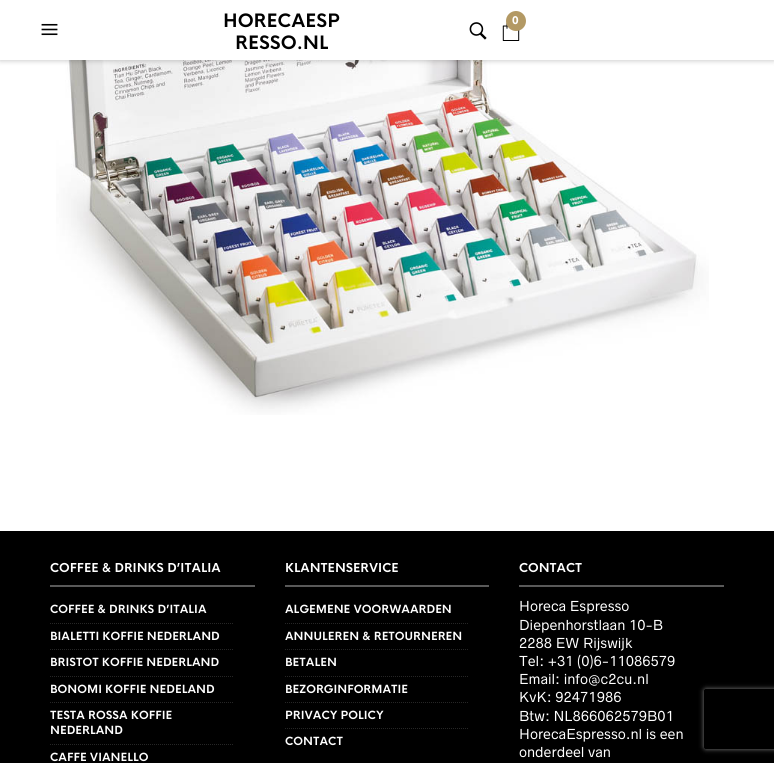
#include <cairo.h>
#include <math.h>
#include <stddef.h>


static void round_rect(cairo_t *cr, double x, double y, double w, double h, double r) {
    cairo_new_sub_path(cr);
    cairo_arc(cr, x + w - r, y + h - r, r, 0, M_PI / 2);
    cairo_arc(cr, x + r, y + h - r, r, M_PI / 2, M_PI);
    cairo_arc(cr, x + r, y + r, r, M_PI, 1.5 * M_PI);
    cairo_arc(cr, x + w - r, y + r, r, 1.5 * M_PI, 2 * M_PI);
    cairo_close_path(cr);
}

static void shadow(cairo_t *cr, double x, double y, double w, double h, double r, double blur, double alpha) {
    cairo_push_group_with_content(cr, CAIRO_CONTENT_ALPHA);
    cairo_set_operator(cr, CAIRO_OPERATOR_SOURCE);
    for (int i = 15; i >= -15 && fmin(w, h) + blur * i / 3 > 0; i -= 2) {
        double e = blur * i / 6;
        cairo_set_source_rgba(cr, 0, 0, 0, alpha * erfc((i - 1) / 8.5) / 2);
        round_rect(cr, x - e, y - e, w + 2 * e, h + 2 * e, fmax(0, fmin(r + e + blur * .6, fmin(w, h) / 2 + e)));
        cairo_fill(cr);
    }
    cairo_pattern_t *soft = cairo_pop_group(cr);
    cairo_mask(cr, soft);
    cairo_pattern_destroy(soft);
}

static void picture(cairo_t *cr, const char *path, double x, double y, double w, double h) {
    cairo_surface_t *image = cairo_image_surface_create_from_png(path);
    cairo_save(cr);
    cairo_set_source_surface(cr, image, x, y);
    cairo_rectangle(cr, x, y, w, h);
    cairo_fill(cr);
    cairo_restore(cr);
    cairo_surface_destroy(image);
}

int main(void) {
    cairo_surface_t *surface = cairo_image_surface_create(CAIRO_FORMAT_RGB24, 774, 763);
    cairo_t *cr = cairo_create(surface);
    cairo_font_options_t *options = cairo_font_options_create();
    cairo_font_options_set_hint_metrics(options, CAIRO_HINT_METRICS_OFF);
    cairo_font_options_set_hint_style(options, CAIRO_HINT_STYLE_NONE);
    cairo_set_font_options(cr, options);
    cairo_set_miter_limit(cr, 4);
    cairo_set_source_rgb(cr, 1, 1, 1);
    cairo_paint(cr);
    picture(cr, "img4.png", 56, 60, 653, 355);
    cairo_set_source_rgb(cr, 0, 0, 0);
    shadow(cr, 0, 1, 774, 60, 0, 2.5, 0.2);
    cairo_set_source_rgb(cr, 1, 1, 1);
    cairo_rectangle(cr, 0, 0, 774, 60);
    cairo_fill(cr);
    cairo_select_font_face(cr, "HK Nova", CAIRO_FONT_SLANT_NORMAL, CAIRO_FONT_WEIGHT_BOLD);
    cairo_set_font_size(cr, 18);
    cairo_set_source_rgb(cr, 0, 0, 0);
    cairo_move_to(cr, 223, 27);
    cairo_show_text(cr, "HORECAESP");
    cairo_move_to(cr, 235, 49);
    cairo_show_text(cr, "RESSO.NL");
    picture(cr, "img1.png", 502, 22, 18, 19);
    cairo_set_source_rgb(cr, 0.702, 0.6, 0.392);
    cairo_arc(cr, 516, 21, 10, 0, 2 * M_PI);
    cairo_fill(cr);
    cairo_select_font_face(cr, "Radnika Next", CAIRO_FONT_SLANT_NORMAL, CAIRO_FONT_WEIGHT_BOLD);
    cairo_set_font_size(cr, 10);
    cairo_set_source_rgb(cr, 1, 1, 1);
    cairo_move_to(cr, 512, 24);
    cairo_show_text(cr, "0");
    picture(cr, "img2.png", 469, 22, 18, 18);
    picture(cr, "img3.png", 41, 23, 17, 13);
    cairo_set_source_rgb(cr, 0, 0, 0);
    cairo_rectangle(cr, 0, 531, 774, 232);
    cairo_fill(cr);
    cairo_set_source_rgb(cr, 0.349, 0.349, 0.349);
    cairo_rectangle(cr, 50, 585, 205, 2);
    cairo_fill(cr);
    cairo_select_font_face(cr, "HK Nova", CAIRO_FONT_SLANT_NORMAL, CAIRO_FONT_WEIGHT_BOLD);
    cairo_set_font_size(cr, 12);
    cairo_set_source_rgb(cr, 1, 1, 1);
    cairo_move_to(cr, 50, 572);
    cairo_show_text(cr, "COFFEE & DRINKS D’ITALIA");
    cairo_new_path(cr);
    cairo_move_to(cr, 50, 623.5);
    cairo_line_to(cr, 234, 623.5);
    cairo_set_source_rgb(cr, 0.149, 0.149, 0.149);
    cairo_set_line_width(cr, 1);
    cairo_set_dash(cr, (double[]){1, 1}, 2, 0);
    cairo_stroke(cr);
    cairo_set_font_size(cr, 11);
    cairo_set_source_rgb(cr, 1, 1, 1);
    cairo_move_to(cr, 50, 613);
    cairo_show_text(cr, "COFFEE & DRINKS D’ITALIA");
    cairo_new_path(cr);
    cairo_move_to(cr, 50, 649.5);
    cairo_line_to(cr, 234, 649.5);
    cairo_set_source_rgb(cr, 0.149, 0.149, 0.149);
    cairo_stroke(cr);
    cairo_set_source_rgb(cr, 1, 1, 1);
    cairo_move_to(cr, 50, 640);
    cairo_show_text(cr, "BIALETTI KOFFIE NEDERLAND");
    cairo_new_path(cr);
    cairo_move_to(cr, 50, 676.5);
    cairo_line_to(cr, 234, 676.5);
    cairo_set_source_rgb(cr, 0.149, 0.149, 0.149);
    cairo_stroke(cr);
    cairo_set_source_rgb(cr, 1, 1, 1);
    cairo_move_to(cr, 50, 666);
    cairo_show_text(cr, "BRISTOT KOFFIE NEDERLAND");
    cairo_new_path(cr);
    cairo_move_to(cr, 50, 702.5);
    cairo_line_to(cr, 234, 702.5);
    cairo_set_source_rgb(cr, 0.149, 0.149, 0.149);
    cairo_stroke(cr);
    cairo_set_source_rgb(cr, 1, 1, 1);
    cairo_move_to(cr, 50, 693);
    cairo_show_text(cr, "BONOMI KOFFIE NEDELAND");
    cairo_new_path(cr);
    cairo_move_to(cr, 50, 744.5);
    cairo_line_to(cr, 234, 744.5);
    cairo_set_source_rgb(cr, 0.149, 0.149, 0.149);
    cairo_stroke(cr);
    cairo_set_source_rgb(cr, 1, 1, 1);
    cairo_move_to(cr, 50, 719);
    cairo_show_text(cr, "TESTA ROSSA KOFFIE");
    cairo_move_to(cr, 50, 734);
    cairo_show_text(cr, "NEDERLAND");
    cairo_move_to(cr, 50, 761);
    cairo_show_text(cr, "CAFFE VIANELLO");
    cairo_set_source_rgb(cr, 0.349, 0.349, 0.349);
    cairo_rectangle(cr, 285, 585, 204, 2);
    cairo_fill(cr);
    cairo_set_font_size(cr, 12);
    cairo_set_source_rgb(cr, 1, 1, 1);
    cairo_move_to(cr, 285, 572);
    cairo_show_text(cr, "KLANTENSERVICE");
    cairo_new_path(cr);
    cairo_move_to(cr, 285, 623.5);
    cairo_line_to(cr, 469, 623.5);
    cairo_set_source_rgb(cr, 0.149, 0.149, 0.149);
    cairo_stroke(cr);
    cairo_set_font_size(cr, 11);
    cairo_set_source_rgb(cr, 1, 1, 1);
    cairo_move_to(cr, 285, 613);
    cairo_show_text(cr, "ALGEMENE VOORWAARDEN");
    cairo_new_path(cr);
    cairo_move_to(cr, 285, 649.5);
    cairo_line_to(cr, 469, 649.5);
    cairo_set_source_rgb(cr, 0.149, 0.149, 0.149);
    cairo_stroke(cr);
    cairo_set_source_rgb(cr, 1, 1, 1);
    cairo_move_to(cr, 285, 640);
    cairo_show_text(cr, "ANNULEREN & RETOURNEREN");
    cairo_new_path(cr);
    cairo_move_to(cr, 285, 676.5);
    cairo_line_to(cr, 469, 676.5);
    cairo_set_source_rgb(cr, 0.149, 0.149, 0.149);
    cairo_stroke(cr);
    cairo_set_source_rgb(cr, 1, 1, 1);
    cairo_move_to(cr, 285, 666);
    cairo_show_text(cr, "BETALEN");
    cairo_new_path(cr);
    cairo_move_to(cr, 285, 702.5);
    cairo_line_to(cr, 469, 702.5);
    cairo_set_source_rgb(cr, 0.149, 0.149, 0.149);
    cairo_stroke(cr);
    cairo_set_source_rgb(cr, 1, 1, 1);
    cairo_move_to(cr, 285, 693);
    cairo_show_text(cr, "BEZORGINFORMATIE");
    cairo_new_path(cr);
    cairo_move_to(cr, 285, 728.5);
    cairo_line_to(cr, 469, 728.5);
    cairo_set_source_rgb(cr, 0.149, 0.149, 0.149);
    cairo_stroke(cr);
    cairo_set_source_rgb(cr, 1, 1, 1);
    cairo_move_to(cr, 285, 719);
    cairo_show_text(cr, "PRIVACY POLICY");
    cairo_move_to(cr, 285, 745);
    cairo_show_text(cr, "CONTACT");
    cairo_set_source_rgb(cr, 0.349, 0.349, 0.349);
    cairo_rectangle(cr, 519, 585, 205, 2);
    cairo_fill(cr);
    cairo_set_font_size(cr, 12);
    cairo_set_source_rgb(cr, 1, 1, 1);
    cairo_move_to(cr, 519, 572);
    cairo_show_text(cr, "CONTACT");
    cairo_select_font_face(cr, "Radnika Next", CAIRO_FONT_SLANT_NORMAL, CAIRO_FONT_WEIGHT_NORMAL);
    cairo_set_font_size(cr, 13);
    cairo_move_to(cr, 519, 611);
    cairo_show_text(cr, "Horeca Espresso");
    cairo_move_to(cr, 519, 630);
    cairo_show_text(cr, "Diepenhorstlaan 10-B");
    cairo_move_to(cr, 519, 648);
    cairo_show_text(cr, "2288 EW Rijswijk");
    cairo_move_to(cr, 519, 666);
    cairo_show_text(cr, "Tel: +31 (0)6-11086579");
    cairo_move_to(cr, 519, 684);
    cairo_show_text(cr, "Email: info@c2cu.nl");
    cairo_move_to(cr, 519, 702);
    cairo_show_text(cr, "KvK: 92471986");
    cairo_move_to(cr, 519, 721);
    cairo_show_text(cr, "Btw: NL866062579B01");
    cairo_move_to(cr, 519, 739);
    cairo_show_text(cr, "HorecaEspresso.nl is een");
    cairo_move_to(cr, 519, 757);
    cairo_show_text(cr, "onderdeel van");
    cairo_save(cr);
    cairo_set_fill_rule(cr, CAIRO_FILL_RULE_EVEN_ODD);
    cairo_new_path(cr);
    cairo_move_to(cr, 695, 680);
    cairo_line_to(cr, 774, 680);
    cairo_line_to(cr, 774, 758);
    cairo_line_to(cr, 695, 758);
    cairo_close_path(cr);
    cairo_move_to(cr, 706, 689);
    cairo_line_to(cr, 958, 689);
    cairo_curve_to(cr, 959, 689, 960, 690, 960, 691);
    cairo_line_to(cr, 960, 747);
    cairo_curve_to(cr, 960, 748, 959, 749, 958, 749);
    cairo_line_to(cr, 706, 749);
    cairo_curve_to(cr, 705, 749, 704, 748, 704, 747);
    cairo_line_to(cr, 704, 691);
    cairo_curve_to(cr, 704, 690, 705, 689, 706, 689);
    cairo_close_path(cr);
    cairo_clip(cr);
    cairo_set_source_rgb(cr, 0.502, 0.502, 0.502);
    shadow(cr, 704, 689, 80, 60, 2, 2.5, 1);
    cairo_restore(cr);
    cairo_surface_write_to_png(surface, "page.png");
    cairo_font_options_destroy(options);
    cairo_destroy(cr);
    cairo_surface_destroy(surface);
    return 0;
}
